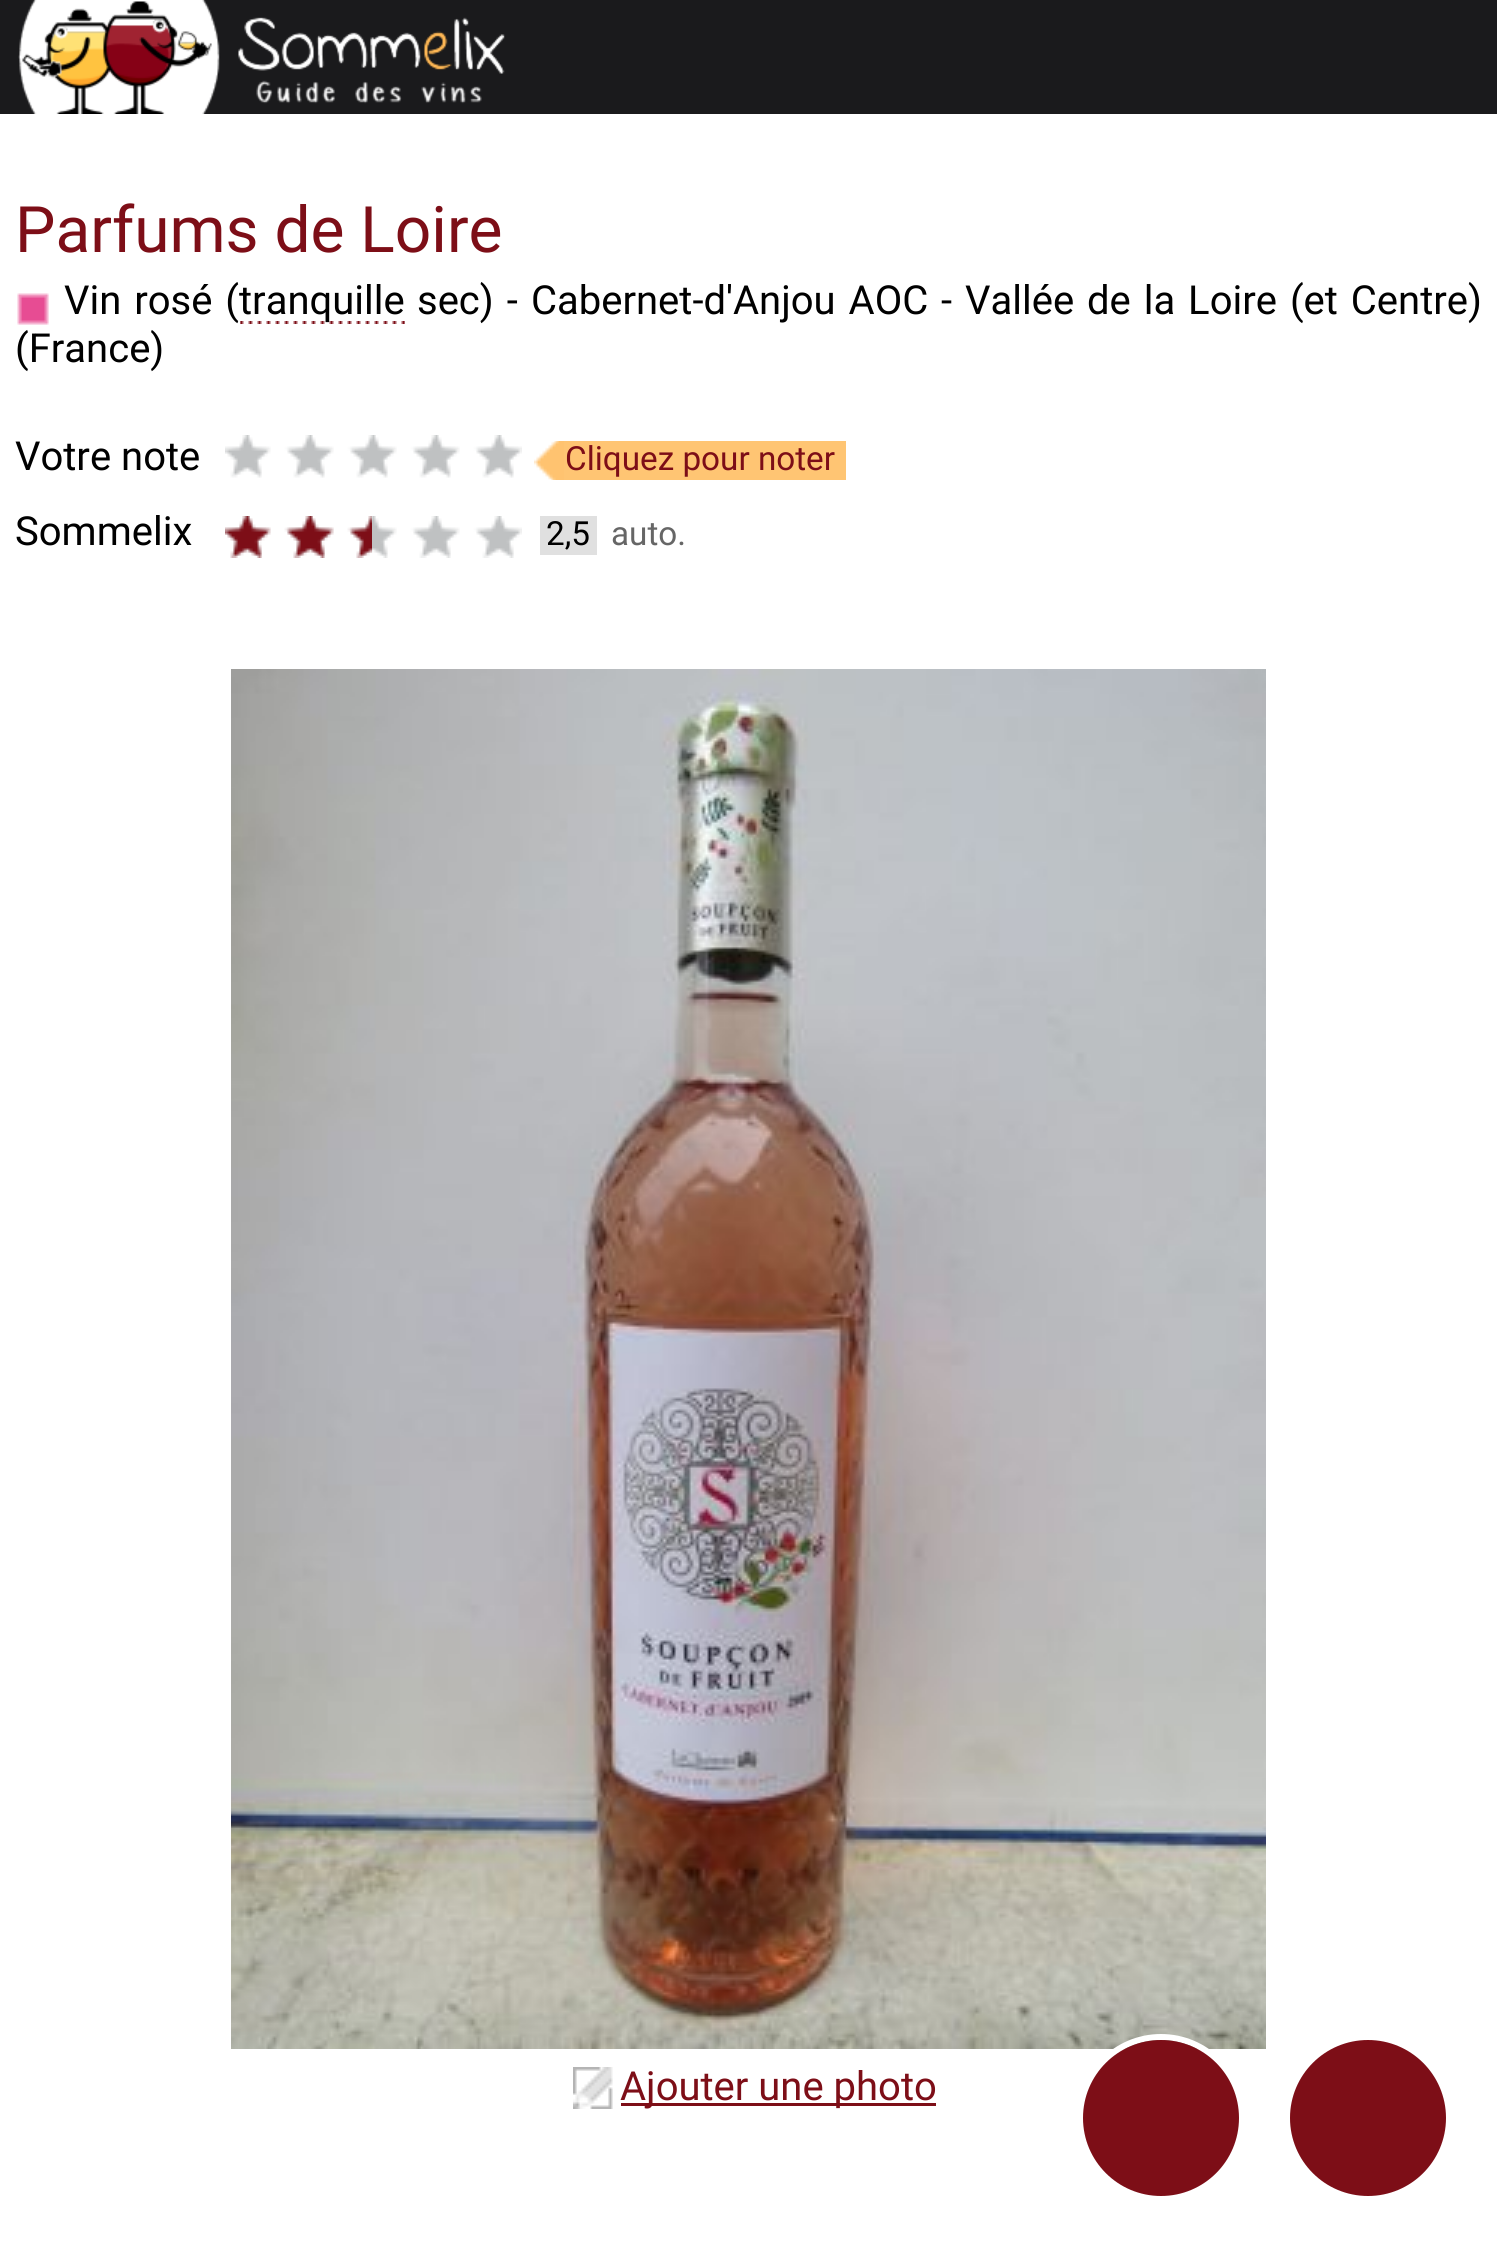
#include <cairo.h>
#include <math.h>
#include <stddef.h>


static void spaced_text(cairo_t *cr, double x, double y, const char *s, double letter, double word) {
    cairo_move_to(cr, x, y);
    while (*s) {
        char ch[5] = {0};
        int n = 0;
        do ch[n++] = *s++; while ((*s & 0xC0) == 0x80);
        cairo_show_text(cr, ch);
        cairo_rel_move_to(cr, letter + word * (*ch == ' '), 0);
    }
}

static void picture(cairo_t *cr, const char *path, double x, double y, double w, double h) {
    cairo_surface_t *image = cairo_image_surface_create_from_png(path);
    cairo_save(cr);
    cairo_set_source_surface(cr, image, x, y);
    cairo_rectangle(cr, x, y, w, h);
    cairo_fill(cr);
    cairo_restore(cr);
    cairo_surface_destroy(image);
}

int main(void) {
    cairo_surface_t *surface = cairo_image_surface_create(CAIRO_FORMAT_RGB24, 1497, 2245);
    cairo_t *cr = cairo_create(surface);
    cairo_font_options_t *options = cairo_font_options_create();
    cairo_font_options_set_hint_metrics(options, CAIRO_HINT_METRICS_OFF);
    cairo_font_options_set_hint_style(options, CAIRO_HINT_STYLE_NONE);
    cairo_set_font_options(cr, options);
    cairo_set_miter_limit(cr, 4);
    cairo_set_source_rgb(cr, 1, 1, 1);
    cairo_paint(cr);
    cairo_set_source_rgb(cr, 0.102, 0.102, 0.11);
    cairo_rectangle(cr, 0, 0, 1497, 114);
    cairo_fill(cr);
    picture(cr, "img1.png", 18, 0, 487, 114);
    cairo_select_font_face(cr, "Roboto", CAIRO_FONT_SLANT_NORMAL, CAIRO_FONT_WEIGHT_NORMAL);
    cairo_set_font_size(cr, 64);
    cairo_set_source_rgb(cr, 0.49, 0.055, 0.09);
    cairo_move_to(cr, 15, 252);
    cairo_show_text(cr, "Parfums de Loire");
    picture(cr, "img2.png", 17, 293, 32, 32);
    cairo_set_font_size(cr, 40);
    cairo_set_source_rgb(cr, 0, 0, 0);
    spaced_text(cr, 64, 314, "Vin rosé (", 0, 3);
    picture(cr, "img3.png", 240, 321, 165, 3);
    cairo_move_to(cr, 239, 314);
    cairo_show_text(cr, "tranquille");
    spaced_text(cr, 417, 314, "sec) -", 0, 3);
    spaced_text(cr, 531, 314, "Cabernet-d'Anjou AOC", 0, 3);
    cairo_move_to(cr, 941, 314);
    cairo_show_text(cr, "-");
    spaced_text(cr, 965, 314, "Vallée de la Loire (et Centre)", 0, 3);
    cairo_move_to(cr, 15, 362);
    cairo_show_text(cr, "(France)");
    cairo_move_to(cr, 15, 470);
    cairo_show_text(cr, "Votre note");
    picture(cr, "img4.png", 225, 435, 297, 43);
    picture(cr, "img5.png", 534, 441, 30, 39);
    cairo_set_source_rgb(cr, 1, 0.773, 0.451);
    cairo_rectangle(cr, 564, 441, 282, 39);
    cairo_fill(cr);
    cairo_set_font_size(cr, 33.25);
    cairo_set_source_rgb(cr, 0.49, 0.055, 0.09);
    cairo_move_to(cr, 565, 470);
    cairo_show_text(cr, "Cliquez pour noter");
    cairo_set_font_size(cr, 40);
    cairo_set_source_rgb(cr, 0, 0, 0);
    cairo_move_to(cr, 15, 545);
    cairo_show_text(cr, "Sommelix");
    picture(cr, "img6.png", 225, 516, 297, 42);
    picture(cr, "img7.png", 225, 516, 147, 42);
    cairo_set_source_rgb(cr, 0.878, 0.878, 0.878);
    cairo_rectangle(cr, 540, 516, 57, 39);
    cairo_fill(cr);
    cairo_set_font_size(cr, 33.25);
    cairo_set_source_rgb(cr, 0, 0, 0);
    cairo_move_to(cr, 546, 545);
    cairo_show_text(cr, "2,5");
    cairo_set_source_rgb(cr, 0.4, 0.4, 0.4);
    cairo_move_to(cr, 611, 545);
    cairo_show_text(cr, "auto.");
    picture(cr, "img8.png", 231, 669, 1035, 1380);
    picture(cr, "img9.png", 573, 2067, 40, 42);
    cairo_set_source_rgb(cr, 0.49, 0.055, 0.09);
    cairo_rectangle(cr, 621, 2103, 315, 3);
    cairo_fill(cr);
    cairo_set_font_size(cr, 40);
    cairo_move_to(cr, 620, 2100);
    cairo_show_text(cr, "Ajouter une photo");
    cairo_new_path(cr);
    cairo_arc(cr, 1161, 2118, 81, 0, 2 * M_PI);
    cairo_set_source_rgb(cr, 1, 1, 1);
    cairo_set_line_width(cr, 6);
    cairo_stroke(cr);
    cairo_set_source_rgb(cr, 0.49, 0.055, 0.09);
    cairo_arc(cr, 1161, 2118, 78, 0, 2 * M_PI);
    cairo_fill(cr);
    cairo_arc(cr, 1368, 2118, 78, 0, 2 * M_PI);
    cairo_fill(cr);
    cairo_surface_write_to_png(surface, "page.png");
    cairo_font_options_destroy(options);
    cairo_destroy(cr);
    cairo_surface_destroy(surface);
    return 0;
}
